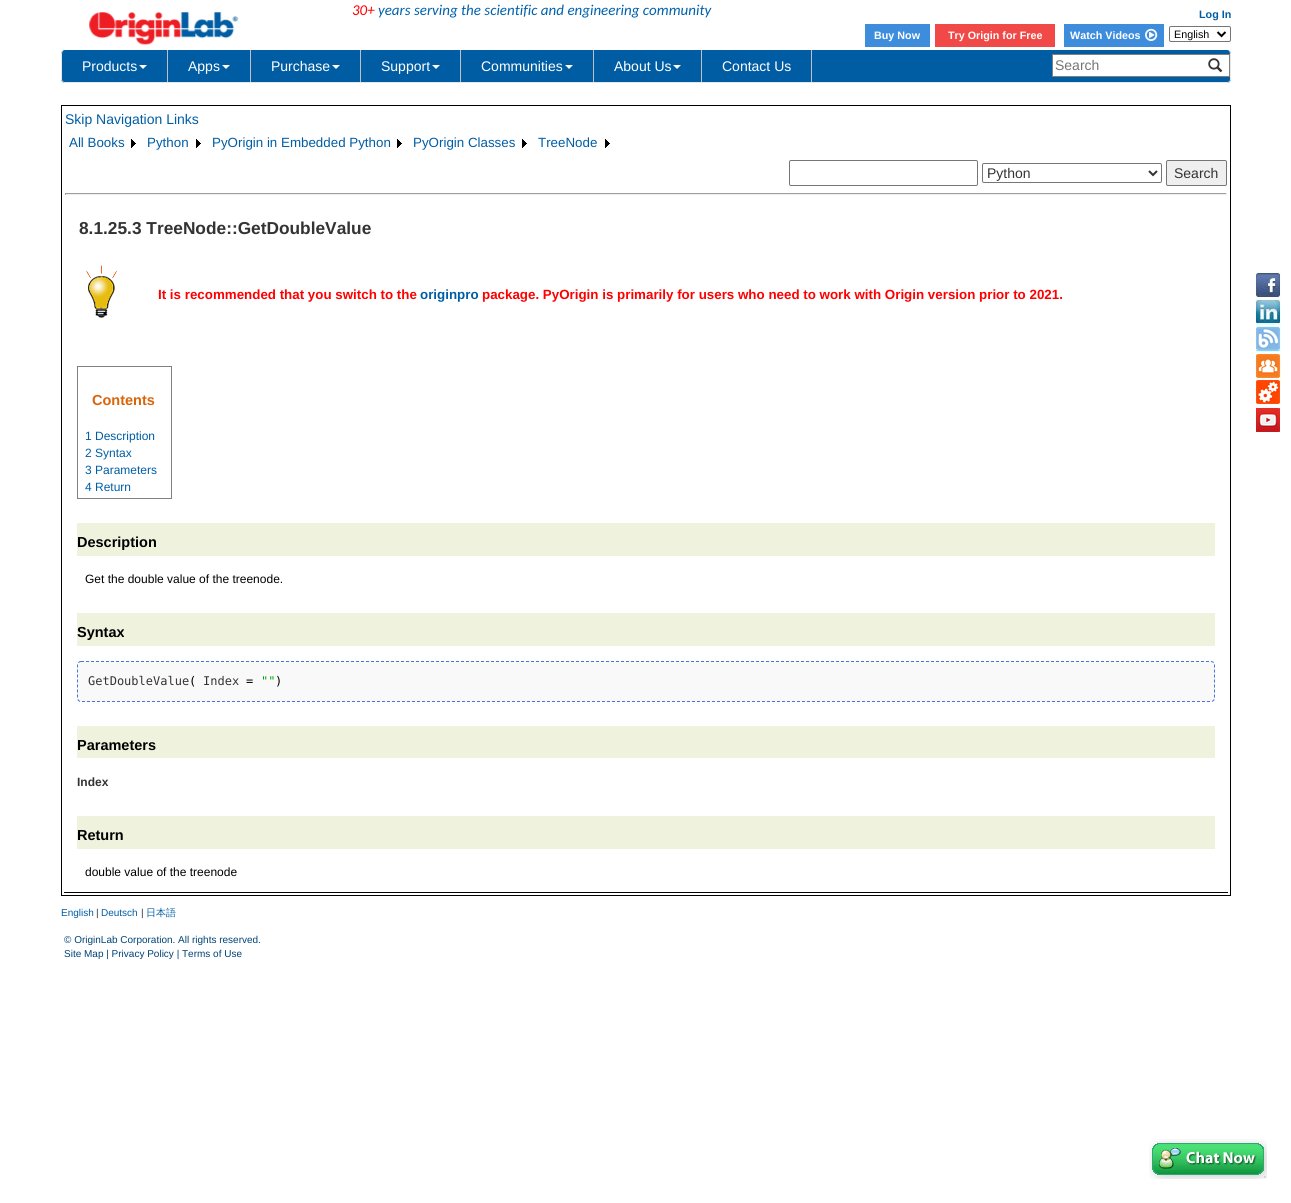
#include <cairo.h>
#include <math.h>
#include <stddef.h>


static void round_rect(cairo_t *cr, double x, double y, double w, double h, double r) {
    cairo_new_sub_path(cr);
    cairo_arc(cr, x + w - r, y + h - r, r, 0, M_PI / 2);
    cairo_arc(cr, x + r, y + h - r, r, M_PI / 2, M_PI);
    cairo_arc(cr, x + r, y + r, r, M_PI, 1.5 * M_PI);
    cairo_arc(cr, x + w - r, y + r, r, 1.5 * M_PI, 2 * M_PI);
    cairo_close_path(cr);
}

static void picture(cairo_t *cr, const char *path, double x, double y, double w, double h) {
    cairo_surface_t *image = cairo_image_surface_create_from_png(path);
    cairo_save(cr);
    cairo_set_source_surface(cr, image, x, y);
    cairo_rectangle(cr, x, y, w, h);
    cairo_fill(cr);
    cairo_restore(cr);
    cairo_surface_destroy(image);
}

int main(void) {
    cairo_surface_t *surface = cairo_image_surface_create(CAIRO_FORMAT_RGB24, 1291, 1203);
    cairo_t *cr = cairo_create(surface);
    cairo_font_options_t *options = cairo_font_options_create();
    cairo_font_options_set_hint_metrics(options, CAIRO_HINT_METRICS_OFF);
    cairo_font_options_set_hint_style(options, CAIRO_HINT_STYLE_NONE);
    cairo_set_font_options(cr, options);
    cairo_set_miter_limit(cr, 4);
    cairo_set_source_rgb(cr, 1, 1, 1);
    cairo_paint(cr);
    picture(cr, "img1.png", 89, 12, 150, 33);
    cairo_select_font_face(cr, "Carlito", CAIRO_FONT_SLANT_ITALIC, CAIRO_FONT_WEIGHT_NORMAL);
    cairo_set_font_size(cr, 15);
    cairo_set_source_rgb(cr, 1, 0, 0);
    cairo_move_to(cr, 352, 15);
    cairo_show_text(cr, "30+");
    cairo_set_source_rgb(cr, 0, 0.38, 0.678);
    cairo_move_to(cr, 378, 15);
    cairo_show_text(cr, "years serving the scientific and engineering community");
    cairo_select_font_face(cr, "Liberation Sans", CAIRO_FONT_SLANT_NORMAL, CAIRO_FONT_WEIGHT_BOLD);
    cairo_set_font_size(cr, 10.75);
    cairo_set_source_rgb(cr, 0, 0.365, 0.643);
    cairo_move_to(cr, 1199, 18);
    cairo_show_text(cr, "Log In");
    cairo_set_source_rgb(cr, 0.243, 0.553, 0.867);
    cairo_rectangle(cr, 865, 24, 65, 23);
    cairo_fill(cr);
    cairo_set_source_rgb(cr, 1, 1, 1);
    cairo_move_to(cr, 874, 39);
    cairo_show_text(cr, "Buy Now");
    cairo_set_source_rgb(cr, 0.945, 0.286, 0.278);
    cairo_rectangle(cr, 935, 24, 120, 23);
    cairo_fill(cr);
    cairo_set_source_rgb(cr, 1, 1, 1);
    cairo_move_to(cr, 948, 39);
    cairo_show_text(cr, "Try Origin for Free");
    cairo_set_source_rgb(cr, 0.243, 0.553, 0.867);
    cairo_rectangle(cr, 1064, 24, 100, 23);
    cairo_fill(cr);
    cairo_set_source_rgb(cr, 1, 1, 1);
    cairo_move_to(cr, 1070, 39);
    cairo_show_text(cr, "Watch Videos");
    picture(cr, "img2.png", 1145, 28, 13, 13);
    round_rect(cr, 1169.5, 26.5, 61, 15, 1.5);
    cairo_set_source_rgb(cr, 0.463, 0.463, 0.463);
    cairo_set_line_width(cr, 1);
    cairo_stroke(cr);
    cairo_new_path(cr);
    cairo_move_to(cr, 1217.5, 32);
    cairo_line_to(cr, 1221.5, 36);
    cairo_line_to(cr, 1225.5, 32);
    cairo_set_source_rgb(cr, 0, 0, 0);
    cairo_set_line_width(cr, 2);
    cairo_stroke(cr);
    cairo_select_font_face(cr, "Liberation Sans", CAIRO_FONT_SLANT_NORMAL, CAIRO_FONT_WEIGHT_NORMAL);
    cairo_move_to(cr, 1174, 38);
    cairo_show_text(cr, "English");
    cairo_set_source_rgb(cr, 0, 0.365, 0.643);
    round_rect(cr, 61, 50, 1170, 33, 4);
    cairo_fill(cr);
    cairo_set_source_rgb(cr, 0.906, 0.906, 0.906);
    cairo_set_fill_rule(cr, CAIRO_FILL_RULE_EVEN_ODD);
    cairo_new_path(cr);
    cairo_move_to(cr, 65, 50);
    cairo_line_to(cr, 1227, 50);
    cairo_curve_to(cr, 1229, 50, 1231, 52, 1231, 54);
    cairo_line_to(cr, 1231, 79);
    cairo_curve_to(cr, 1231, 81, 1229, 83, 1227, 83);
    cairo_line_to(cr, 65, 83);
    cairo_curve_to(cr, 63, 83, 61, 81, 61, 79);
    cairo_line_to(cr, 61, 54);
    cairo_curve_to(cr, 61, 52, 63, 50, 65, 50);
    cairo_close_path(cr);
    cairo_move_to(cr, 65, 50);
    cairo_line_to(cr, 1227, 50);
    cairo_curve_to(cr, 1229, 50, 1230, 52, 1230, 54);
    cairo_line_to(cr, 1230, 79);
    cairo_curve_to(cr, 1230, 81, 1229, 82, 1227, 82);
    cairo_line_to(cr, 65, 82);
    cairo_curve_to(cr, 63, 82, 62, 81, 62, 79);
    cairo_line_to(cr, 62, 54);
    cairo_curve_to(cr, 62, 52, 63, 50, 65, 50);
    cairo_close_path(cr);
    cairo_fill(cr);
    cairo_set_source_rgb(cr, 0.749, 0.749, 0.749);
    cairo_rectangle(cr, 167, 50, 1, 32);
    cairo_fill(cr);
    cairo_set_font_size(cr, 14);
    cairo_set_source_rgb(cr, 1, 1, 1);
    cairo_move_to(cr, 82, 71);
    cairo_show_text(cr, "Products");
    cairo_set_fill_rule(cr, CAIRO_FILL_RULE_WINDING);
    cairo_new_path(cr);
    cairo_move_to(cr, 139, 65);
    cairo_line_to(cr, 147, 65);
    cairo_line_to(cr, 143, 69);
    cairo_close_path(cr);
    cairo_fill(cr);
    cairo_set_source_rgb(cr, 0.749, 0.749, 0.749);
    cairo_rectangle(cr, 250, 50, 1, 32);
    cairo_fill(cr);
    cairo_set_source_rgb(cr, 1, 1, 1);
    cairo_move_to(cr, 188, 71);
    cairo_show_text(cr, "Apps");
    cairo_new_path(cr);
    cairo_move_to(cr, 222, 65);
    cairo_line_to(cr, 230, 65);
    cairo_line_to(cr, 226, 69);
    cairo_close_path(cr);
    cairo_fill(cr);
    cairo_set_source_rgb(cr, 0.749, 0.749, 0.749);
    cairo_rectangle(cr, 360, 50, 1, 32);
    cairo_fill(cr);
    cairo_set_source_rgb(cr, 1, 1, 1);
    cairo_move_to(cr, 271, 71);
    cairo_show_text(cr, "Purchase");
    cairo_new_path(cr);
    cairo_move_to(cr, 332, 65);
    cairo_line_to(cr, 340, 65);
    cairo_line_to(cr, 336, 69);
    cairo_close_path(cr);
    cairo_fill(cr);
    cairo_set_source_rgb(cr, 0.749, 0.749, 0.749);
    cairo_rectangle(cr, 460, 50, 1, 32);
    cairo_fill(cr);
    cairo_set_source_rgb(cr, 1, 1, 1);
    cairo_move_to(cr, 381, 71);
    cairo_show_text(cr, "Support");
    cairo_new_path(cr);
    cairo_move_to(cr, 432, 65);
    cairo_line_to(cr, 440, 65);
    cairo_line_to(cr, 436, 69);
    cairo_close_path(cr);
    cairo_fill(cr);
    cairo_set_source_rgb(cr, 0.749, 0.749, 0.749);
    cairo_rectangle(cr, 593, 50, 1, 32);
    cairo_fill(cr);
    cairo_set_source_rgb(cr, 1, 1, 1);
    cairo_move_to(cr, 481, 71);
    cairo_show_text(cr, "Communities");
    cairo_new_path(cr);
    cairo_move_to(cr, 565, 65);
    cairo_line_to(cr, 573, 65);
    cairo_line_to(cr, 569, 69);
    cairo_close_path(cr);
    cairo_fill(cr);
    cairo_set_source_rgb(cr, 0.749, 0.749, 0.749);
    cairo_rectangle(cr, 701, 50, 1, 32);
    cairo_fill(cr);
    cairo_set_source_rgb(cr, 1, 1, 1);
    cairo_move_to(cr, 614, 71);
    cairo_show_text(cr, "About Us");
    cairo_new_path(cr);
    cairo_move_to(cr, 673, 65);
    cairo_line_to(cr, 681, 65);
    cairo_line_to(cr, 677, 69);
    cairo_close_path(cr);
    cairo_fill(cr);
    cairo_set_source_rgb(cr, 0.749, 0.749, 0.749);
    cairo_rectangle(cr, 811, 50, 1, 32);
    cairo_fill(cr);
    cairo_set_source_rgb(cr, 1, 1, 1);
    cairo_move_to(cr, 722, 71);
    cairo_show_text(cr, "Contact Us");
    cairo_rectangle(cr, 1053, 55, 176, 21);
    cairo_fill(cr);
    cairo_set_source_rgb(cr, 0.502, 0.502, 0.502);
    cairo_rectangle(cr, 1052, 54, 178, 1);
    cairo_fill(cr);
    cairo_rectangle(cr, 1052, 76, 150, 1);
    cairo_fill(cr);
    cairo_rectangle(cr, 1052, 54, 1, 23);
    cairo_fill(cr);
    cairo_set_source_rgb(cr, 0.459, 0.459, 0.459);
    cairo_move_to(cr, 1055, 70);
    cairo_show_text(cr, "Search");
    cairo_set_source_rgb(cr, 0.502, 0.502, 0.502);
    cairo_rectangle(cr, 1229, 54, 1, 23);
    cairo_fill(cr);
    cairo_rectangle(cr, 1202, 76, 28, 1);
    cairo_fill(cr);
    picture(cr, "img3.png", 1208, 58, 15, 15);
    picture(cr, "img4.png", 1256, 272, 25, 26);
    picture(cr, "img5.png", 1256, 299, 25, 26);
    picture(cr, "img6.png", 1256, 326, 25, 26);
    picture(cr, "img7.png", 1256, 353, 25, 26);
    picture(cr, "img8.png", 1256, 380, 25, 26);
    picture(cr, "img9.png", 1256, 407, 25, 26);
    cairo_rectangle(cr, 61.5, 105.5, 1169, 790);
    cairo_set_source_rgb(cr, 0, 0, 0);
    cairo_set_line_width(cr, 1);
    cairo_stroke(cr);
    cairo_set_source_rgb(cr, 0, 0.365, 0.643);
    cairo_move_to(cr, 65, 124);
    cairo_show_text(cr, "Skip Navigation Links");
    cairo_set_font_size(cr, 13.35);
    cairo_move_to(cr, 69, 147);
    cairo_show_text(cr, "All Books");
    picture(cr, "img10.png", 131, 139, 5, 9);
    cairo_move_to(cr, 147, 147);
    cairo_show_text(cr, "Python");
    picture(cr, "img10.png", 196, 139, 5, 9);
    cairo_move_to(cr, 212, 147);
    cairo_show_text(cr, "PyOrigin in Embedded Python");
    picture(cr, "img10.png", 397, 139, 5, 9);
    cairo_move_to(cr, 413, 147);
    cairo_show_text(cr, "PyOrigin Classes");
    picture(cr, "img10.png", 522, 139, 5, 9);
    cairo_move_to(cr, 538, 147);
    cairo_show_text(cr, "TreeNode");
    picture(cr, "img10.png", 605, 139, 5, 9);
    round_rect(cr, 789.5, 160.5, 188, 25, 1.5);
    cairo_set_source_rgb(cr, 0.463, 0.463, 0.463);
    cairo_stroke(cr);
    round_rect(cr, 982.5, 163.5, 179, 19, 1.5);
    cairo_stroke(cr);
    cairo_new_path(cr);
    cairo_move_to(cr, 1149, 171);
    cairo_line_to(cr, 1153, 175);
    cairo_line_to(cr, 1157, 171);
    cairo_set_source_rgb(cr, 0.2, 0.2, 0.2);
    cairo_set_line_width(cr, 2);
    cairo_stroke(cr);
    cairo_set_font_size(cr, 14);
    cairo_move_to(cr, 987, 178);
    cairo_show_text(cr, "Python");
    cairo_set_source_rgb(cr, 0.937, 0.937, 0.937);
    round_rect(cr, 1166.5, 160.5, 60, 25, 1.5);
    cairo_fill_preserve(cr);
    cairo_set_source_rgb(cr, 0.463, 0.463, 0.463);
    cairo_set_line_width(cr, 1);
    cairo_stroke(cr);
    cairo_set_source_rgb(cr, 0.2, 0.2, 0.2);
    cairo_move_to(cr, 1174, 178);
    cairo_show_text(cr, "Search");
    cairo_set_source_rgb(cr, 0.624, 0.624, 0.624);
    cairo_rectangle(cr, 65, 193, 1162, 1);
    cairo_fill(cr);
    cairo_set_source_rgb(cr, 0.933, 0.933, 0.933);
    cairo_rectangle(cr, 1226, 193, 1, 2);
    cairo_fill(cr);
    cairo_rectangle(cr, 65, 194, 1162, 1);
    cairo_fill(cr);
    cairo_set_source_rgb(cr, 0.624, 0.624, 0.624);
    cairo_rectangle(cr, 65, 193, 1, 2);
    cairo_fill(cr);
    cairo_set_source_rgb(cr, 0, 0, 0);
    cairo_rectangle(cr, 64, 892, 1164, 1);
    cairo_fill(cr);
    cairo_select_font_face(cr, "Liberation Sans", CAIRO_FONT_SLANT_NORMAL, CAIRO_FONT_WEIGHT_BOLD);
    cairo_set_font_size(cr, 17.3);
    cairo_set_source_rgb(cr, 0.2, 0.2, 0.2);
    cairo_move_to(cr, 79, 234);
    cairo_show_text(cr, "8.1.25.3 TreeNode::GetDoubleValue");
    picture(cr, "img11.png", 86, 265, 31, 53);
    cairo_set_font_size(cr, 13.35);
    cairo_set_source_rgb(cr, 1, 0, 0);
    cairo_move_to(cr, 158, 299);
    cairo_show_text(cr, "It is recommended that you switch to the");
    cairo_set_source_rgb(cr, 0, 0.365, 0.643);
    cairo_move_to(cr, 420, 299);
    cairo_show_text(cr, "originpro");
    cairo_set_source_rgb(cr, 1, 0, 0);
    cairo_move_to(cr, 482, 299);
    cairo_show_text(cr, "package. PyOrigin is primarily for users who need to work with Origin version prior to 2021.");
    cairo_rectangle(cr, 77.5, 366.5, 94, 132);
    cairo_set_source_rgb(cr, 0.502, 0.502, 0.502);
    cairo_stroke(cr);
    cairo_set_font_size(cr, 14.5);
    cairo_set_source_rgb(cr, 0.855, 0.392, 0.039);
    cairo_move_to(cr, 92, 405);
    cairo_show_text(cr, "Contents");
    cairo_select_font_face(cr, "Liberation Sans", CAIRO_FONT_SLANT_NORMAL, CAIRO_FONT_WEIGHT_NORMAL);
    cairo_set_font_size(cr, 12);
    cairo_set_source_rgb(cr, 0, 0.365, 0.643);
    cairo_move_to(cr, 85, 440);
    cairo_show_text(cr, "1 Description");
    cairo_move_to(cr, 85, 457);
    cairo_show_text(cr, "2 Syntax");
    cairo_move_to(cr, 85, 474);
    cairo_show_text(cr, "3 Parameters");
    cairo_move_to(cr, 85, 491);
    cairo_show_text(cr, "4 Return");
    cairo_set_source_rgb(cr, 0.937, 0.949, 0.867);
    cairo_rectangle(cr, 77, 523, 1138, 33);
    cairo_fill(cr);
    cairo_select_font_face(cr, "Liberation Sans", CAIRO_FONT_SLANT_NORMAL, CAIRO_FONT_WEIGHT_BOLD);
    cairo_set_font_size(cr, 14.5);
    cairo_set_source_rgb(cr, 0, 0, 0);
    cairo_move_to(cr, 77, 547);
    cairo_show_text(cr, "Description");
    cairo_select_font_face(cr, "Liberation Sans", CAIRO_FONT_SLANT_NORMAL, CAIRO_FONT_WEIGHT_NORMAL);
    cairo_set_font_size(cr, 12);
    cairo_move_to(cr, 85, 583);
    cairo_show_text(cr, "Get the double value of the treenode.");
    cairo_set_source_rgb(cr, 0.937, 0.949, 0.867);
    cairo_rectangle(cr, 77, 613, 1138, 33);
    cairo_fill(cr);
    cairo_select_font_face(cr, "Liberation Sans", CAIRO_FONT_SLANT_NORMAL, CAIRO_FONT_WEIGHT_BOLD);
    cairo_set_font_size(cr, 14.5);
    cairo_set_source_rgb(cr, 0, 0, 0);
    cairo_move_to(cr, 77, 637);
    cairo_show_text(cr, "Syntax");
    cairo_set_source_rgb(cr, 0.976, 0.976, 0.976);
    round_rect(cr, 77, 661, 1138, 41, 4);
    cairo_fill(cr);
    cairo_new_path(cr);
    cairo_move_to(cr, 81, 661.5);
    cairo_line_to(cr, 1211, 661.5);
    cairo_curve_to(cr, 1213, 661.5, 1214.5, 663, 1214.5, 665);
    cairo_line_to(cr, 1214.5, 698);
    cairo_curve_to(cr, 1214.5, 700, 1213, 701.5, 1211, 701.5);
    cairo_line_to(cr, 81, 701.5);
    cairo_curve_to(cr, 79, 701.5, 77.5, 700, 77.5, 698);
    cairo_line_to(cr, 77.5, 665);
    cairo_curve_to(cr, 77.5, 663, 79, 661.5, 81, 661.5);
    cairo_close_path(cr);
    cairo_set_source_rgb(cr, 0.271, 0.459, 0.867);
    cairo_set_dash(cr, (double[]){3, 2}, 2, 0);
    cairo_stroke(cr);
    cairo_select_font_face(cr, "DejaVu Sans Mono", CAIRO_FONT_SLANT_NORMAL, CAIRO_FONT_WEIGHT_NORMAL);
    cairo_set_font_size(cr, 12);
    cairo_set_source_rgb(cr, 0.2, 0.2, 0.2);
    cairo_move_to(cr, 88, 685);
    cairo_show_text(cr, "GetDoubleValue");
    cairo_set_source_rgb(cr, 0, 0, 0);
    cairo_move_to(cr, 189, 685);
    cairo_show_text(cr, "(");
    cairo_set_source_rgb(cr, 0.2, 0.2, 0.2);
    cairo_move_to(cr, 203, 685);
    cairo_show_text(cr, "Index");
    cairo_set_source_rgb(cr, 0, 0.667, 0);
    cairo_move_to(cr, 261, 685);
    cairo_show_text(cr, "\"\"");
    cairo_set_source_rgb(cr, 0, 0, 0);
    cairo_move_to(cr, 275, 685);
    cairo_show_text(cr, ")");
    cairo_move_to(cr, 246, 685);
    cairo_show_text(cr, "=");
    cairo_set_source_rgb(cr, 0.937, 0.949, 0.867);
    cairo_rectangle(cr, 77, 726, 1138, 32);
    cairo_fill(cr);
    cairo_select_font_face(cr, "Liberation Sans", CAIRO_FONT_SLANT_NORMAL, CAIRO_FONT_WEIGHT_BOLD);
    cairo_set_font_size(cr, 14.5);
    cairo_set_source_rgb(cr, 0, 0, 0);
    cairo_move_to(cr, 77, 750);
    cairo_show_text(cr, "Parameters");
    cairo_set_font_size(cr, 12);
    cairo_set_source_rgb(cr, 0.2, 0.2, 0.2);
    cairo_move_to(cr, 77, 786);
    cairo_show_text(cr, "Index");
    cairo_set_source_rgb(cr, 0.937, 0.949, 0.867);
    cairo_rectangle(cr, 77, 816, 1138, 33);
    cairo_fill(cr);
    cairo_set_font_size(cr, 14.5);
    cairo_set_source_rgb(cr, 0, 0, 0);
    cairo_move_to(cr, 77, 840);
    cairo_show_text(cr, "Return");
    cairo_select_font_face(cr, "Liberation Sans", CAIRO_FONT_SLANT_NORMAL, CAIRO_FONT_WEIGHT_NORMAL);
    cairo_set_font_size(cr, 12);
    cairo_move_to(cr, 85, 876);
    cairo_show_text(cr, "double value of the treenode");
    cairo_set_font_size(cr, 10);
    cairo_set_source_rgb(cr, 0, 0.365, 0.643);
    cairo_move_to(cr, 61, 916);
    cairo_show_text(cr, "English");
    cairo_set_source_rgb(cr, 0.2, 0.2, 0.2);
    cairo_move_to(cr, 96, 916);
    cairo_show_text(cr, "|");
    cairo_set_source_rgb(cr, 0, 0.365, 0.643);
    cairo_move_to(cr, 101, 916);
    cairo_show_text(cr, "Deutsch");
    cairo_set_source_rgb(cr, 0.2, 0.2, 0.2);
    cairo_move_to(cr, 141, 916);
    cairo_show_text(cr, "|");
    cairo_select_font_face(cr, "WenQuanYi Zen Hei Medium", CAIRO_FONT_SLANT_NORMAL, CAIRO_FONT_WEIGHT_NORMAL);
    cairo_set_source_rgb(cr, 0, 0.365, 0.643);
    cairo_move_to(cr, 146, 916);
    cairo_show_text(cr, "日本語");
    cairo_select_font_face(cr, "Liberation Sans", CAIRO_FONT_SLANT_NORMAL, CAIRO_FONT_WEIGHT_NORMAL);
    cairo_set_source_rgb(cr, 0, 0.263, 0.463);
    cairo_move_to(cr, 64, 943);
    cairo_show_text(cr, "© OriginLab Corporation. All rights reserved.");
    cairo_move_to(cr, 64, 957);
    cairo_show_text(cr, "Site Map | Privacy Policy | Terms of Use");
    picture(cr, "img12.png", 1149, 1139, 118, 40);
    cairo_set_source_rgb(cr, 0.8, 0.8, 0.8);
    cairo_arc(cr, 1265, 1177, 1, 0, 2 * M_PI);
    cairo_fill(cr);
    cairo_surface_write_to_png(surface, "page.png");
    cairo_font_options_destroy(options);
    cairo_destroy(cr);
    cairo_surface_destroy(surface);
    return 0;
}
